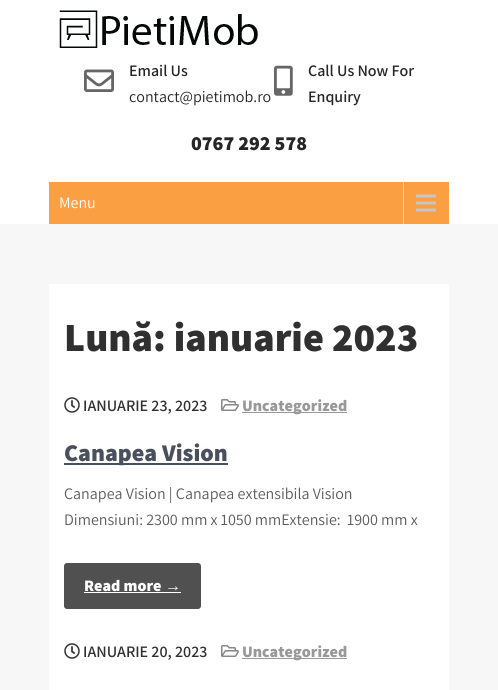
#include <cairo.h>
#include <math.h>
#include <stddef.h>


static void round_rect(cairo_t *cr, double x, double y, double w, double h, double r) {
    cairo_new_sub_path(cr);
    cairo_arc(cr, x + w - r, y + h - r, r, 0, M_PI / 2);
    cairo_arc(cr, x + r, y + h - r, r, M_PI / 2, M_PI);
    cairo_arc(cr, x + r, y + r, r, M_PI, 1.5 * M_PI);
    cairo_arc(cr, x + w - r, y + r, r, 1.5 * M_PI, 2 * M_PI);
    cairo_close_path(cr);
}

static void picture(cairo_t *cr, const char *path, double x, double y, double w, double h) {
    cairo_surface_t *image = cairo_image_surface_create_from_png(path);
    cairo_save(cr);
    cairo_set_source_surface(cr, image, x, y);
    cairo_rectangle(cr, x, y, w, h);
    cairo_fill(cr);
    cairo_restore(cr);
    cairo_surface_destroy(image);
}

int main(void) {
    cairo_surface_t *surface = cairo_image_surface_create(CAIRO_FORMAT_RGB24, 498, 690);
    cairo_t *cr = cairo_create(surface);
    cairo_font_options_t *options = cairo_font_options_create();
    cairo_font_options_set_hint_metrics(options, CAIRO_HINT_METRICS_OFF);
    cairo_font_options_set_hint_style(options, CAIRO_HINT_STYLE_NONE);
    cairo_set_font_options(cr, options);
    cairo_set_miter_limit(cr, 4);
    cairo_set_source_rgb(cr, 0.965, 0.965, 0.965);
    cairo_paint(cr);
    cairo_set_source_rgb(cr, 1, 1, 1);
    cairo_rectangle(cr, 0, 0, 498, 224);
    cairo_fill(cr);
    picture(cr, "img1.png", 59, 10, 199, 38);
    picture(cr, "img2.png", 84, 69, 30, 23);
    cairo_select_font_face(cr, "Assistant SemiBold", CAIRO_FONT_SLANT_NORMAL, CAIRO_FONT_WEIGHT_NORMAL);
    cairo_set_font_size(cr, 16);
    cairo_set_source_rgb(cr, 0.149, 0.149, 0.149);
    cairo_move_to(cr, 129, 76);
    cairo_show_text(cr, "Email Us");
    cairo_select_font_face(cr, "Assistant", CAIRO_FONT_SLANT_NORMAL, CAIRO_FONT_WEIGHT_NORMAL);
    cairo_move_to(cr, 129, 102);
    cairo_show_text(cr, "contact@pietimob.ro");
    picture(cr, "img3.png", 274, 65, 19, 31);
    cairo_select_font_face(cr, "Assistant SemiBold", CAIRO_FONT_SLANT_NORMAL, CAIRO_FONT_WEIGHT_NORMAL);
    cairo_move_to(cr, 308, 76);
    cairo_show_text(cr, "Call Us Now For");
    cairo_move_to(cr, 308, 102);
    cairo_show_text(cr, "Enquiry");
    cairo_select_font_face(cr, "Assistant ExtraBold", CAIRO_FONT_SLANT_NORMAL, CAIRO_FONT_WEIGHT_NORMAL);
    cairo_set_font_size(cr, 20);
    cairo_move_to(cr, 191, 150);
    cairo_show_text(cr, "0767 292 578");
    cairo_set_source_rgb(cr, 0.98, 0.624, 0.259);
    cairo_rectangle(cr, 49, 182, 400, 42);
    cairo_fill(cr);
    picture(cr, "img4.png", 403, 182, 33, 42);
    cairo_select_font_face(cr, "Assistant", CAIRO_FONT_SLANT_NORMAL, CAIRO_FONT_WEIGHT_NORMAL);
    cairo_set_font_size(cr, 16);
    cairo_set_source_rgb(cr, 1, 1, 1);
    cairo_move_to(cr, 59, 208);
    cairo_show_text(cr, "Menu");
    cairo_rectangle(cr, 49, 284, 400, 406);
    cairo_fill(cr);
    cairo_select_font_face(cr, "Assistant ExtraBold", CAIRO_FONT_SLANT_NORMAL, CAIRO_FONT_WEIGHT_NORMAL);
    cairo_set_font_size(cr, 40);
    cairo_set_source_rgb(cr, 0.188, 0.188, 0.188);
    cairo_move_to(cr, 64, 351);
    cairo_show_text(cr, "Lună: ianuarie 2023");
    picture(cr, "img5.png", 64, 397, 16, 16);
    cairo_select_font_face(cr, "Assistant SemiBold", CAIRO_FONT_SLANT_NORMAL, CAIRO_FONT_WEIGHT_NORMAL);
    cairo_set_font_size(cr, 16);
    cairo_move_to(cr, 83, 411);
    cairo_show_text(cr, "IANUARIE 23, 2023");
    picture(cr, "img6.png", 221, 399, 18, 12);
    cairo_set_source_rgb(cr, 0.6, 0.6, 0.6);
    cairo_rectangle(cr, 242, 412, 105, 1);
    cairo_fill(cr);
    cairo_select_font_face(cr, "Assistant ExtraBold", CAIRO_FONT_SLANT_NORMAL, CAIRO_FONT_WEIGHT_NORMAL);
    cairo_move_to(cr, 242, 411);
    cairo_show_text(cr, "Uncategorized");
    cairo_set_source_rgb(cr, 0.282, 0.31, 0.369);
    cairo_rectangle(cr, 64, 463, 164, 2);
    cairo_fill(cr);
    cairo_set_font_size(cr, 24);
    cairo_move_to(cr, 64, 461);
    cairo_show_text(cr, "Canapea Vision");
    cairo_select_font_face(cr, "Assistant", CAIRO_FONT_SLANT_NORMAL, CAIRO_FONT_WEIGHT_NORMAL);
    cairo_set_font_size(cr, 16);
    cairo_set_source_rgb(cr, 0.361, 0.361, 0.361);
    cairo_move_to(cr, 64, 499);
    cairo_show_text(cr, "Canapea Vision | Canapea extensibila Vision");
    cairo_move_to(cr, 64, 525);
    cairo_show_text(cr, "Dimensiuni: 2300 mm x 1050 mmExtensie:  1900 mm x");
    cairo_set_source_rgb(cr, 0.314, 0.314, 0.314);
    round_rect(cr, 64, 563, 137, 46, 3);
    cairo_fill(cr);
    cairo_select_font_face(cr, "Assistant ExtraBold", CAIRO_FONT_SLANT_NORMAL, CAIRO_FONT_WEIGHT_NORMAL);
    cairo_set_source_rgb(cr, 1, 1, 1);
    cairo_move_to(cr, 84, 591);
    cairo_show_text(cr, "Read more");
    cairo_select_font_face(cr, "Liberation Sans", CAIRO_FONT_SLANT_NORMAL, CAIRO_FONT_WEIGHT_BOLD);
    cairo_move_to(cr, 165, 591);
    cairo_show_text(cr, "→");
    cairo_rectangle(cr, 84, 592, 97, 1);
    cairo_fill(cr);
    picture(cr, "img5.png", 64, 643, 16, 16);
    cairo_select_font_face(cr, "Assistant SemiBold", CAIRO_FONT_SLANT_NORMAL, CAIRO_FONT_WEIGHT_NORMAL);
    cairo_set_source_rgb(cr, 0.188, 0.188, 0.188);
    cairo_move_to(cr, 83, 657);
    cairo_show_text(cr, "IANUARIE 20, 2023");
    picture(cr, "img6.png", 221, 645, 18, 12);
    cairo_set_source_rgb(cr, 0.6, 0.6, 0.6);
    cairo_rectangle(cr, 242, 658, 105, 1);
    cairo_fill(cr);
    cairo_select_font_face(cr, "Assistant ExtraBold", CAIRO_FONT_SLANT_NORMAL, CAIRO_FONT_WEIGHT_NORMAL);
    cairo_move_to(cr, 242, 657);
    cairo_show_text(cr, "Uncategorized");
    cairo_surface_write_to_png(surface, "page.png");
    cairo_font_options_destroy(options);
    cairo_destroy(cr);
    cairo_surface_destroy(surface);
    return 0;
}
